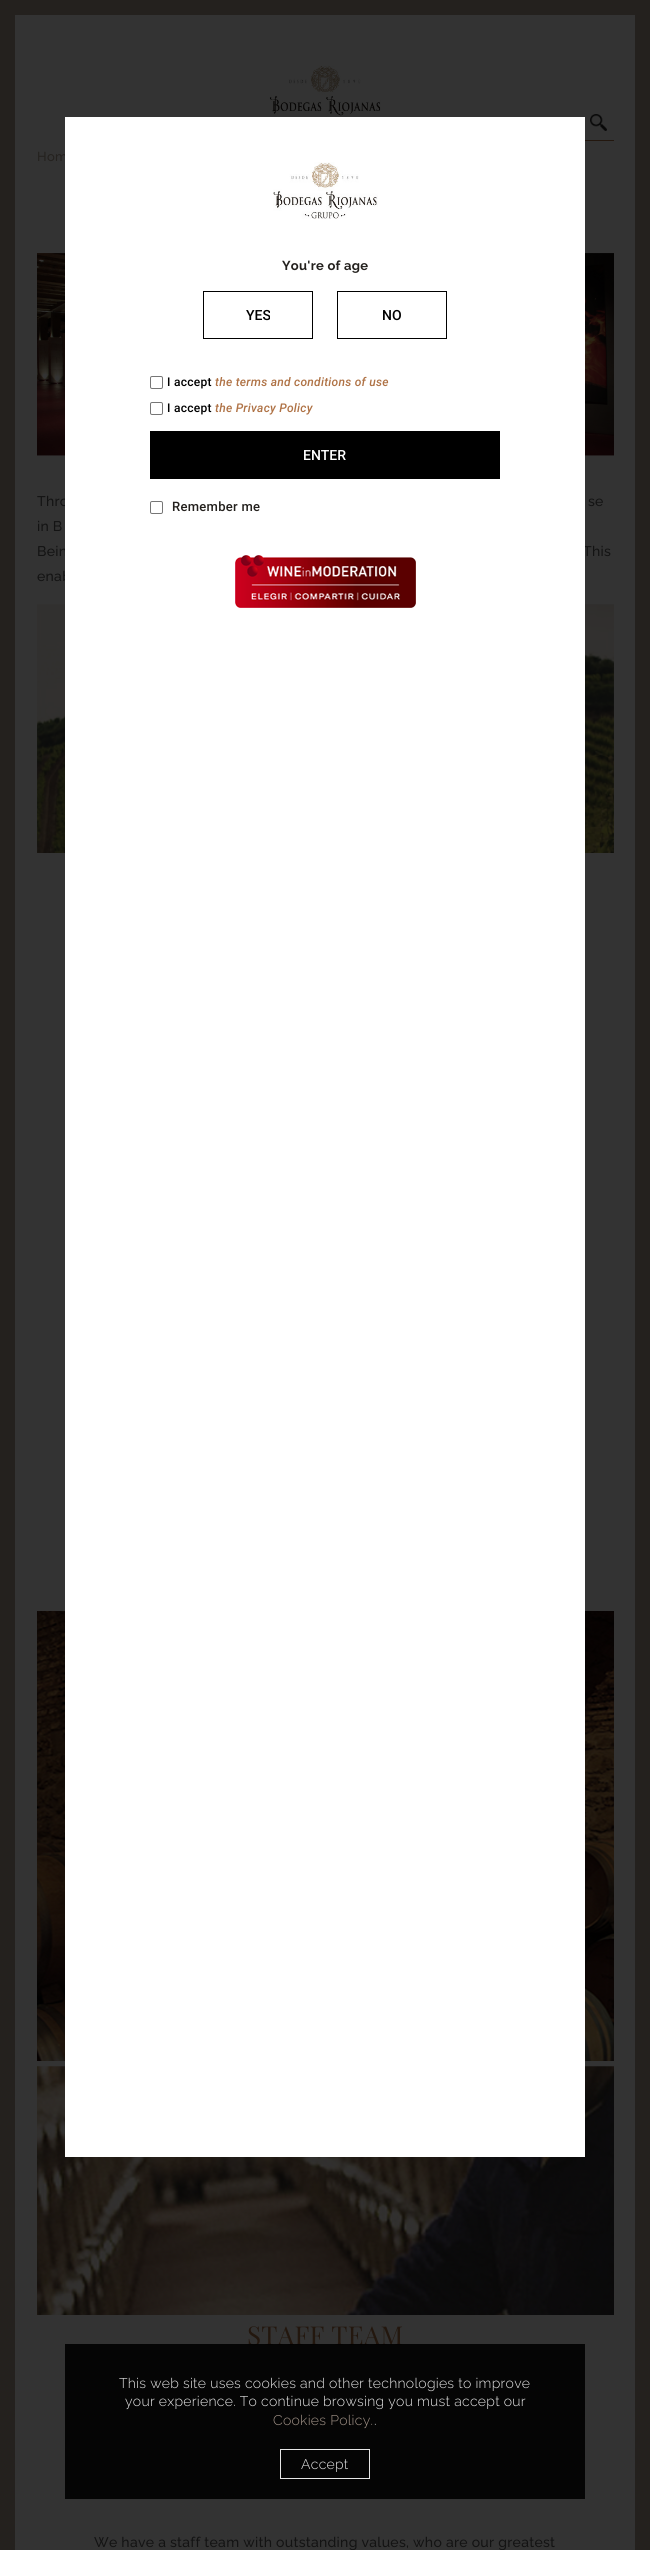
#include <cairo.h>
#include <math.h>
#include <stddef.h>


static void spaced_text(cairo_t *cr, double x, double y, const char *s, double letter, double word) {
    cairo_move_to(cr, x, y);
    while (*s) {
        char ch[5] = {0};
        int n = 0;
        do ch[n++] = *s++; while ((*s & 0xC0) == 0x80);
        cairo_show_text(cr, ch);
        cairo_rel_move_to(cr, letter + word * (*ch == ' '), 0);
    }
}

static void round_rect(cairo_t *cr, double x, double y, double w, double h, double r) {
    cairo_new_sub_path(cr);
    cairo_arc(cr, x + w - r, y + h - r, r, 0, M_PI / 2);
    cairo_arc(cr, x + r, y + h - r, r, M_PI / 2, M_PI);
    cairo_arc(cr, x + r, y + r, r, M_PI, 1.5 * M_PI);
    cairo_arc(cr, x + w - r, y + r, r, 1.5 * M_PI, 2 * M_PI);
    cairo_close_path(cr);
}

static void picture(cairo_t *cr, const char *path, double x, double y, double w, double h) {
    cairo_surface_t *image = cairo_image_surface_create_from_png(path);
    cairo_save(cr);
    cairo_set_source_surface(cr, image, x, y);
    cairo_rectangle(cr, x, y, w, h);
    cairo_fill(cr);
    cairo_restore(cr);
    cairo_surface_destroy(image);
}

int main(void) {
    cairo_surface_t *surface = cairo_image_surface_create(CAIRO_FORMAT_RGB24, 650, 2550);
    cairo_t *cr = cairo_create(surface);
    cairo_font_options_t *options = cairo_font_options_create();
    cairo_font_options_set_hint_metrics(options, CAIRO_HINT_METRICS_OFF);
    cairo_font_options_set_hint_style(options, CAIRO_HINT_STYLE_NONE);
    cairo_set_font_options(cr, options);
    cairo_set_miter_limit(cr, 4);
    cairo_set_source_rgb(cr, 0.2, 0.2, 0.2);
    cairo_paint(cr);
    cairo_rectangle(cr, 7.5, 7.5, 635, 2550);
    cairo_set_source_rgb(cr, 0.141, 0.129, 0.118);
    cairo_set_line_width(cr, 15);
    cairo_stroke(cr);
    picture(cr, "img1.png", 269, 65, 112, 52);
    picture(cr, "img2.png", 590, 114, 17, 17);
    cairo_set_source_rgb(cr, 0.137, 0.09, 0.055);
    cairo_rectangle(cr, 584, 140, 30, 1);
    cairo_fill(cr);
    cairo_select_font_face(cr, "Raleway Medium", CAIRO_FONT_SLANT_NORMAL, CAIRO_FONT_WEIGHT_NORMAL);
    cairo_set_font_size(cr, 13);
    cairo_set_source_rgb(cr, 0.141, 0.129, 0.118);
    spaced_text(cr, 37, 161, "Hom", 0.28, 0);
    picture(cr, "img3.png", 37, 253, 577, 203);
    cairo_set_font_size(cr, 14);
    cairo_set_source_rgb(cr, 0.078, 0.078, 0.078);
    spaced_text(cr, 37, 506, "Thro", 0.28, 0);
    spaced_text(cr, 588, 506, "se", 0.28, 0);
    spaced_text(cr, 37, 531, "in B", 0.28, 0);
    spaced_text(cr, 37, 556, "Bein", 0.28, 0);
    spaced_text(cr, 583, 556, "This", 0.28, 0);
    spaced_text(cr, 37, 581, "enab", 0.28, 0);
    picture(cr, "img4.png", 37, 604, 577, 249);
    picture(cr, "img5.png", 37, 1611, 577, 450);
    picture(cr, "img6.png", 37, 2066, 577, 249);
    cairo_select_font_face(cr, "Playfair Display", CAIRO_FONT_SLANT_NORMAL, CAIRO_FONT_WEIGHT_NORMAL);
    cairo_set_font_size(cr, 26);
    cairo_set_source_rgb(cr, 0.137, 0.09, 0.055);
    spaced_text(cr, 247, 2345, "STAFF TEAM", 0.28, 0);
    cairo_select_font_face(cr, "Raleway Medium", CAIRO_FONT_SLANT_NORMAL, CAIRO_FONT_WEIGHT_NORMAL);
    cairo_set_font_size(cr, 14);
    cairo_set_source_rgb(cr, 0.078, 0.078, 0.078);
    spaced_text(cr, 94, 2547, "We have a staff team with outstanding values, who are our greatest", 0.28, 0);
    cairo_set_source_rgba(cr, 0, 0, 0, 0.9);
    cairo_rectangle(cr, 65, 2344, 520, 155);
    cairo_fill(cr);
    cairo_select_font_face(cr, "Raleway Light", CAIRO_FONT_SLANT_NORMAL, CAIRO_FONT_WEIGHT_NORMAL);
    cairo_set_source_rgb(cr, 0.902, 0.902, 0.902);
    spaced_text(cr, 119, 2388, "This web site uses cookies and other technologies to improve", 0.28, 0);
    spaced_text(cr, 125, 2406, "your experience. To continue browsing you must accept our", 0.28, 0);
    cairo_set_source_rgb(cr, 0.639, 0.58, 0.537);
    spaced_text(cr, 273, 2425, "Cookies Policy.", 0.28, 0);
    cairo_set_source_rgb(cr, 0.902, 0.902, 0.902);
    spaced_text(cr, 374, 2425, ".", 0.28, 0);
    cairo_rectangle(cr, 280.5, 2449.5, 89, 29);
    cairo_set_source_rgba(cr, 1, 1, 1, 0.9);
    cairo_set_line_width(cr, 1);
    cairo_stroke(cr);
    cairo_set_source_rgb(cr, 0.902, 0.902, 0.902);
    spaced_text(cr, 301, 2469, "Accept", 0.28, 0);
    cairo_set_source_rgb(cr, 1, 1, 1);
    cairo_rectangle(cr, 65, 117, 520, 2040);
    cairo_fill(cr);
    picture(cr, "img7.png", 273, 162, 105, 57);
    cairo_select_font_face(cr, "Raleway", CAIRO_FONT_SLANT_NORMAL, CAIRO_FONT_WEIGHT_BOLD);
    cairo_set_font_size(cr, 13);
    cairo_set_source_rgb(cr, 0.141, 0.129, 0.118);
    spaced_text(cr, 282, 270, "You're of age", 0.28, 0);
    cairo_rectangle(cr, 203.5, 291.5, 109, 47);
    cairo_set_source_rgb(cr, 0, 0, 0);
    cairo_stroke(cr);
    cairo_select_font_face(cr, "Roboto Medium", CAIRO_FONT_SLANT_NORMAL, CAIRO_FONT_WEIGHT_NORMAL);
    cairo_set_font_size(cr, 14);
    cairo_move_to(cr, 246, 320);
    cairo_show_text(cr, "YES");
    cairo_rectangle(cr, 337.5, 291.5, 109, 47);
    cairo_stroke(cr);
    cairo_move_to(cr, 382, 320);
    cairo_show_text(cr, "NO");
    round_rect(cr, 150.5, 376.5, 12, 12, 1.5);
    cairo_set_source_rgb(cr, 0.463, 0.463, 0.463);
    cairo_stroke(cr);
    cairo_set_font_size(cr, 12);
    cairo_set_source_rgb(cr, 0, 0, 0);
    spaced_text(cr, 167, 386, "I accept", 0.28, 0);
    cairo_select_font_face(cr, "Roboto Medium", CAIRO_FONT_SLANT_ITALIC, CAIRO_FONT_WEIGHT_NORMAL);
    cairo_set_source_rgb(cr, 0.686, 0.447, 0.271);
    spaced_text(cr, 215, 386, "the terms and conditions of use", 0.28, 0);
    round_rect(cr, 150.5, 402.5, 12, 12, 1.5);
    cairo_set_source_rgb(cr, 0.463, 0.463, 0.463);
    cairo_stroke(cr);
    cairo_select_font_face(cr, "Roboto Medium", CAIRO_FONT_SLANT_NORMAL, CAIRO_FONT_WEIGHT_NORMAL);
    cairo_set_source_rgb(cr, 0, 0, 0);
    spaced_text(cr, 167, 412, "I accept", 0.28, 0);
    cairo_select_font_face(cr, "Roboto Medium", CAIRO_FONT_SLANT_ITALIC, CAIRO_FONT_WEIGHT_NORMAL);
    cairo_set_source_rgb(cr, 0.686, 0.447, 0.271);
    spaced_text(cr, 215, 412, "the Privacy Policy", 0.28, 0);
    cairo_set_source_rgb(cr, 0, 0, 0);
    cairo_rectangle(cr, 150, 431, 350, 48);
    cairo_fill(cr);
    cairo_select_font_face(cr, "Roboto Medium", CAIRO_FONT_SLANT_NORMAL, CAIRO_FONT_WEIGHT_NORMAL);
    cairo_set_font_size(cr, 14);
    cairo_set_source_rgb(cr, 1, 1, 1);
    cairo_move_to(cr, 303, 460);
    cairo_show_text(cr, "ENTER");
    round_rect(cr, 150.5, 501.5, 12, 12, 1.5);
    cairo_set_source_rgb(cr, 0.463, 0.463, 0.463);
    cairo_stroke(cr);
    cairo_set_font_size(cr, 13);
    cairo_set_source_rgb(cr, 0.141, 0.129, 0.118);
    spaced_text(cr, 172, 511, "Remember me", 0.28, 0);
    picture(cr, "img8.png", 235, 555, 181, 53);
    cairo_surface_write_to_png(surface, "page.png");
    cairo_font_options_destroy(options);
    cairo_destroy(cr);
    cairo_surface_destroy(surface);
    return 0;
}
